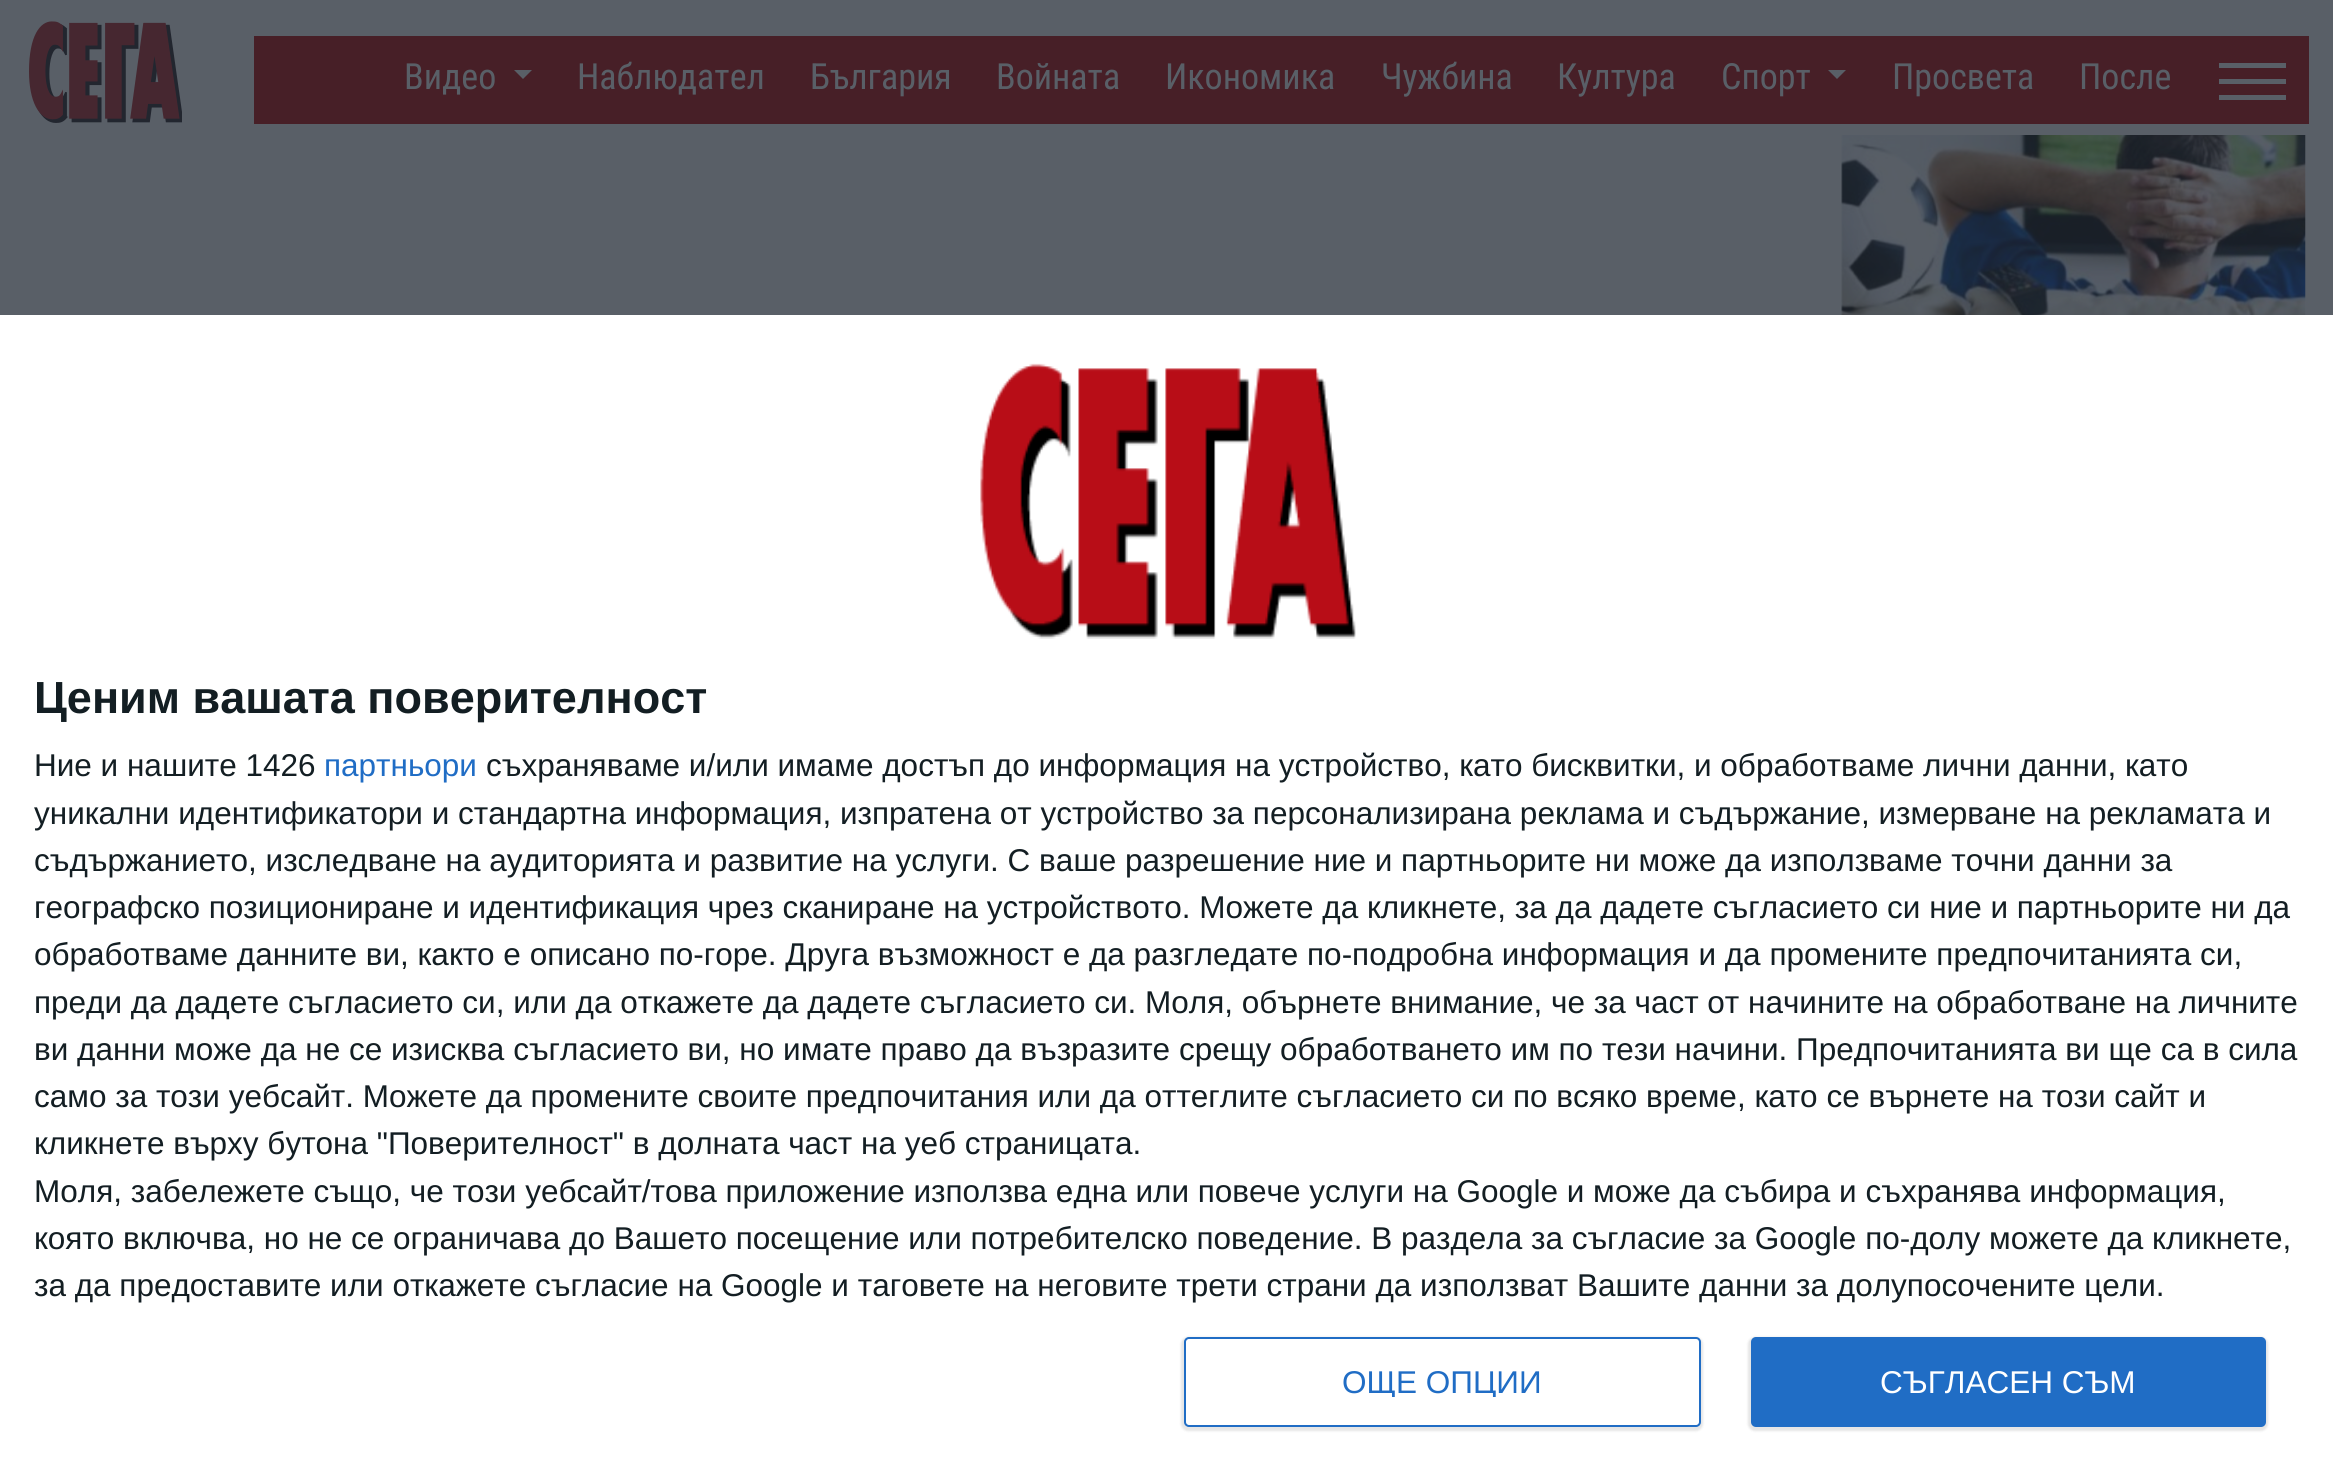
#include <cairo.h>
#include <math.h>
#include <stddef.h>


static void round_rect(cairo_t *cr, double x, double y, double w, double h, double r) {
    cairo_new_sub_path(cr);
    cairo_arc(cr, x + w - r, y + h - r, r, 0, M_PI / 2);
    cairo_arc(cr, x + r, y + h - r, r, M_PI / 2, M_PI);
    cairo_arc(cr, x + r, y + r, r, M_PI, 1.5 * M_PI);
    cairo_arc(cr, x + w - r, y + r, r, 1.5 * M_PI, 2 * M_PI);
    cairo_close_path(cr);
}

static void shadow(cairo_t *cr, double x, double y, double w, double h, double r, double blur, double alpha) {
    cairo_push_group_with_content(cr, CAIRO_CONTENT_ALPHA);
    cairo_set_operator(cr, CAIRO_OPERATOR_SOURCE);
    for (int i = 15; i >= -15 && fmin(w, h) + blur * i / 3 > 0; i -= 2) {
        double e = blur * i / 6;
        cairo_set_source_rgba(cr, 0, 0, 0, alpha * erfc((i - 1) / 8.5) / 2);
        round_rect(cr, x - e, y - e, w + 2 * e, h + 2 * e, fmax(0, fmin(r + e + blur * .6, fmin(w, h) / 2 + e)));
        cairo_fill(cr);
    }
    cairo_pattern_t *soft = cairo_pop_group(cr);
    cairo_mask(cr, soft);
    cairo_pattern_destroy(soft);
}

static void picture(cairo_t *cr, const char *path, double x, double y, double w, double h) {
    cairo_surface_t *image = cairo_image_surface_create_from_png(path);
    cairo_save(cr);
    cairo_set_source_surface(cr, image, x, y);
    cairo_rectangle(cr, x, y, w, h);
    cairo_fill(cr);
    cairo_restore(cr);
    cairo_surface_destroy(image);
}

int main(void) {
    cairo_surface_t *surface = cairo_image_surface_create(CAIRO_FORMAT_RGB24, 2333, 1481);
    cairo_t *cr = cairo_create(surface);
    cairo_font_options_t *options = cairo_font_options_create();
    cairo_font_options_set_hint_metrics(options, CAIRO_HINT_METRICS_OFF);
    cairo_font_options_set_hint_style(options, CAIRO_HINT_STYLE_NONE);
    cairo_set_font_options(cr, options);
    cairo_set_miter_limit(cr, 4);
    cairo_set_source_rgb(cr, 0.349, 0.373, 0.404);
    cairo_paint(cr);
    picture(cr, "img1.png", 29, 21, 153, 102);
    cairo_set_source_rgb(cr, 0.278, 0.122, 0.153);
    cairo_rectangle(cr, 254, 36, 2055, 88);
    cairo_fill(cr);
    cairo_select_font_face(cr, "Roboto Condensed", CAIRO_FONT_SLANT_NORMAL, CAIRO_FONT_WEIGHT_NORMAL);
    cairo_set_font_size(cr, 36);
    cairo_set_source_rgb(cr, 0.349, 0.373, 0.404);
    cairo_move_to(cr, 404, 89);
    cairo_show_text(cr, "Видео");
    cairo_new_path(cr);
    cairo_move_to(cr, 514, 70);
    cairo_line_to(cr, 532, 70);
    cairo_line_to(cr, 523, 79);
    cairo_close_path(cr);
    cairo_fill(cr);
    cairo_move_to(cr, 577, 89);
    cairo_show_text(cr, "Наблюдател");
    cairo_move_to(cr, 810, 89);
    cairo_show_text(cr, "България");
    cairo_move_to(cr, 996, 89);
    cairo_show_text(cr, "Войната");
    cairo_move_to(cr, 1165, 89);
    cairo_show_text(cr, "Икономика");
    cairo_move_to(cr, 1381, 89);
    cairo_show_text(cr, "Чужбина");
    cairo_move_to(cr, 1557, 89);
    cairo_show_text(cr, "Култура");
    cairo_move_to(cr, 1721, 89);
    cairo_show_text(cr, "Спорт");
    cairo_new_path(cr);
    cairo_move_to(cr, 1828, 70);
    cairo_line_to(cr, 1846, 70);
    cairo_line_to(cr, 1837, 79);
    cairo_close_path(cr);
    cairo_fill(cr);
    cairo_move_to(cr, 1892, 89);
    cairo_show_text(cr, "Просвета");
    cairo_move_to(cr, 2079, 89);
    cairo_show_text(cr, "После");
    cairo_rectangle(cr, 2219, 63, 67, 5);
    cairo_fill(cr);
    cairo_rectangle(cr, 2219, 79, 67, 5);
    cairo_fill(cr);
    cairo_rectangle(cr, 2219, 95, 67, 5);
    cairo_fill(cr);
    picture(cr, "img2.png", 1841, 135, 465, 180);
    cairo_set_source_rgb(cr, 1, 1, 1);
    cairo_rectangle(cr, 0, 315, 2333, 1166);
    cairo_fill(cr);
    picture(cr, "img3.png", 980, 363, 376, 276);
    cairo_select_font_face(cr, "Liberation Sans", CAIRO_FONT_SLANT_NORMAL, CAIRO_FONT_WEIGHT_BOLD);
    cairo_set_font_size(cr, 45);
    cairo_set_source_rgb(cr, 0.078, 0.118, 0.137);
    cairo_move_to(cr, 34, 713);
    cairo_show_text(cr, "Ценим вашата поверителност");
    cairo_select_font_face(cr, "Liberation Sans", CAIRO_FONT_SLANT_NORMAL, CAIRO_FONT_WEIGHT_NORMAL);
    cairo_set_font_size(cr, 31.5);
    cairo_move_to(cr, 34, 776);
    cairo_show_text(cr, "Ние и нашите 1426");
    cairo_set_source_rgb(cr, 0.125, 0.427, 0.773);
    cairo_move_to(cr, 324, 776);
    cairo_show_text(cr, "партньори");
    cairo_set_source_rgb(cr, 0.078, 0.118, 0.137);
    cairo_move_to(cr, 486, 776);
    cairo_show_text(cr, "съхраняваме и/или имаме достъп до информация на устройство, като бисквитки, и обработваме лични данни, като");
    cairo_move_to(cr, 34, 824);
    cairo_show_text(cr, "уникални идентификатори и стандартна информация, изпратена от устройство за персонализирана реклама и съдържание, измерване на рекламата и");
    cairo_move_to(cr, 34, 871);
    cairo_show_text(cr, "съдържанието, изследване на аудиторията и развитие на услуги. С ваше разрешение ние и партньорите ни може да използваме точни данни за");
    cairo_move_to(cr, 34, 918);
    cairo_show_text(cr, "географско позициониране и идентификация чрез сканиране на устройството. Можете да кликнете, за да дадете съгласието си ние и партньорите ни да");
    cairo_move_to(cr, 34, 965);
    cairo_show_text(cr, "обработваме данните ви, както е описано по-горе. Друга възможност е да разгледате по-подробна информация и да промените предпочитанията си,");
    cairo_move_to(cr, 34, 1013);
    cairo_show_text(cr, "преди да дадете съгласието си, или да откажете да дадете съгласието си. Моля, обърнете внимание, че за част от начините на обработване на личните");
    cairo_move_to(cr, 34, 1060);
    cairo_show_text(cr, "ви данни може да не се изисква съгласието ви, но имате право да възразите срещу обработването им по тези начини. Предпочитанията ви ще са в сила");
    cairo_move_to(cr, 34, 1107);
    cairo_show_text(cr, "само за този уебсайт. Можете да промените своите предпочитания или да оттеглите съгласието си по всяко време, като се върнете на този сайт и");
    cairo_move_to(cr, 34, 1154);
    cairo_show_text(cr, "кликнете върху бутона \"Поверителност\" в долната част на уеб страницата.");
    cairo_move_to(cr, 34, 1202);
    cairo_show_text(cr, "Моля, забележете също, че този уебсайт/това приложение използва една или повече услуги на Google и може да събира и съхранява информация,");
    cairo_move_to(cr, 34, 1249);
    cairo_show_text(cr, "която включва, но не се ограничава до Вашето посещение или потребителско поведение. В раздела за съгласие за Google по-долу можете да кликнете,");
    cairo_move_to(cr, 34, 1296);
    cairo_show_text(cr, "за да предоставите или откажете съгласие на Google и таговете на неговите трети страни да използват Вашите данни за долупосочените цели.");
    cairo_set_source_rgb(cr, 0, 0, 0);
    shadow(cr, 1181, 1337, 522, 94, 7, 1, 0.1);
    cairo_set_source_rgb(cr, 1, 1, 1);
    round_rect(cr, 1185, 1338, 515, 88, 4);
    cairo_fill_preserve(cr);
    cairo_set_source_rgb(cr, 0.125, 0.427, 0.773);
    cairo_stroke(cr);
    cairo_save(cr);
    cairo_rectangle(cr, 1341, 1366, 200, 31);
    cairo_clip(cr);
    cairo_move_to(cr, 1342, 1393);
    cairo_show_text(cr, "ОЩЕ ОПЦИИ");
    cairo_restore(cr);
    cairo_set_source_rgb(cr, 0, 0, 0);
    shadow(cr, 1748, 1337, 520, 94, 7, 1, 0.1);
    cairo_set_source_rgb(cr, 0.125, 0.427, 0.773);
    round_rect(cr, 1751, 1337, 515, 90, 5);
    cairo_fill(cr);
    cairo_set_source_rgb(cr, 1, 1, 1);
    cairo_move_to(cr, 1880, 1393);
    cairo_show_text(cr, "СЪГЛАСЕН СЪМ");
    cairo_surface_write_to_png(surface, "page.png");
    cairo_font_options_destroy(options);
    cairo_destroy(cr);
    cairo_surface_destroy(surface);
    return 0;
}
